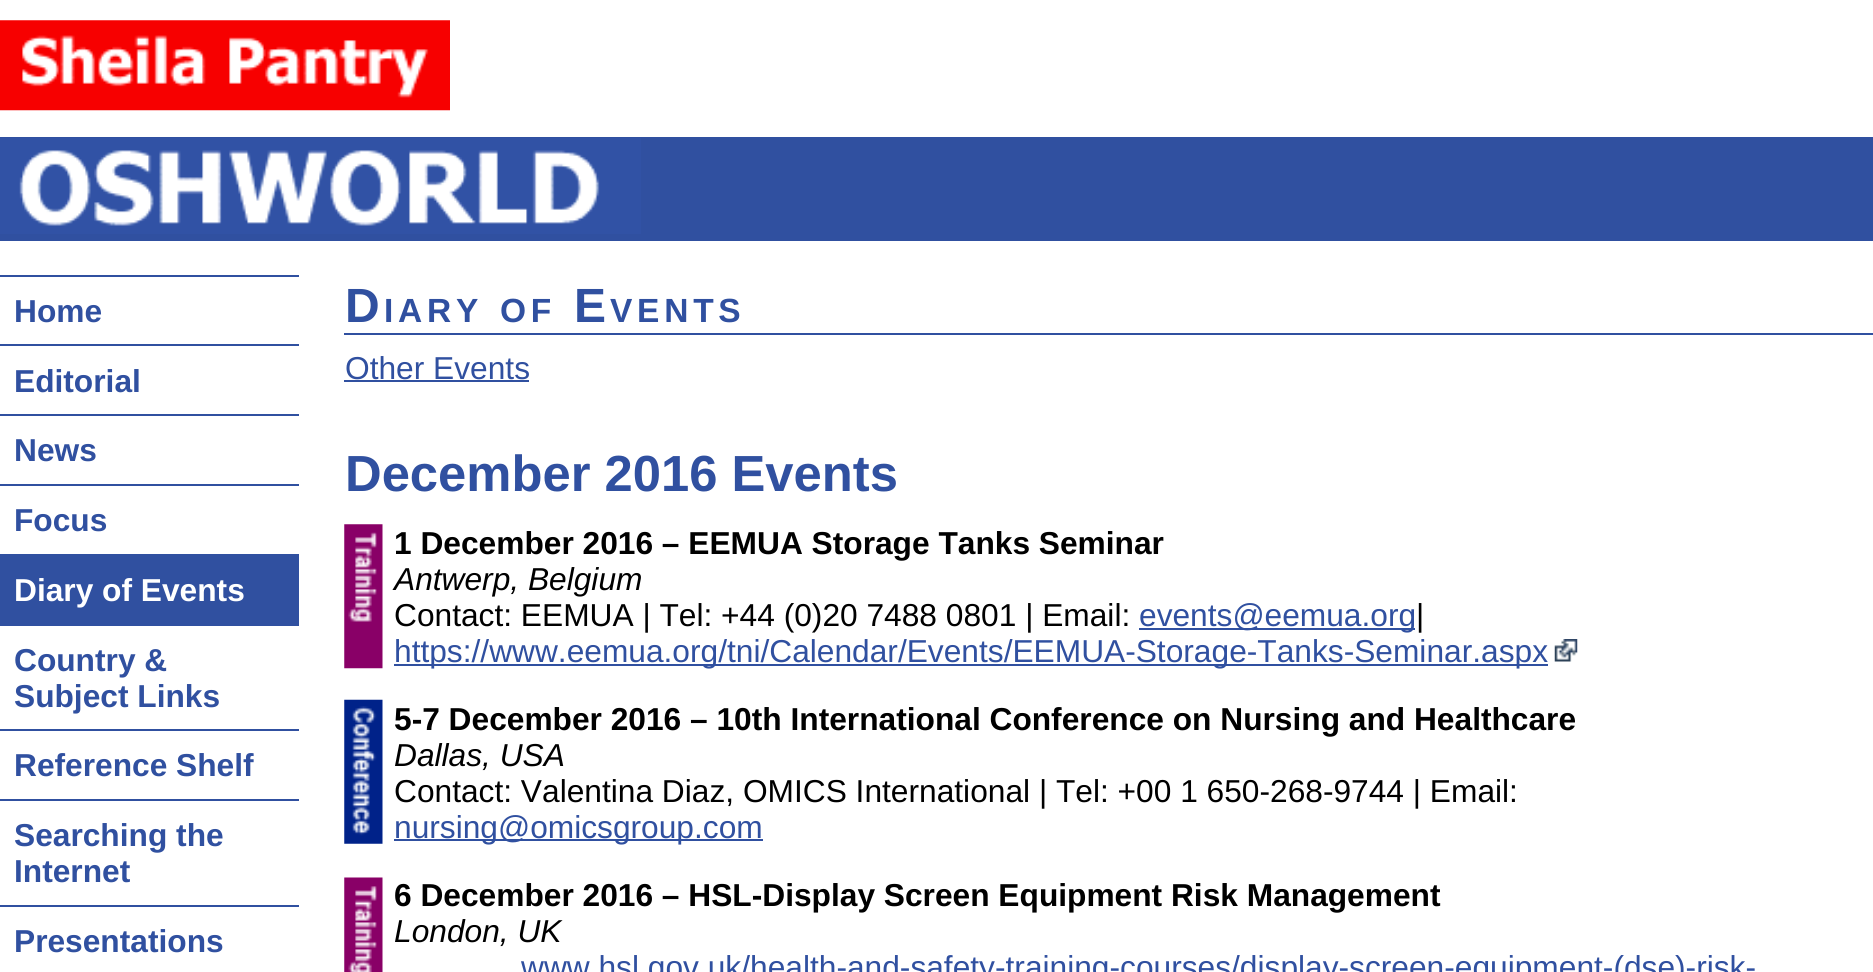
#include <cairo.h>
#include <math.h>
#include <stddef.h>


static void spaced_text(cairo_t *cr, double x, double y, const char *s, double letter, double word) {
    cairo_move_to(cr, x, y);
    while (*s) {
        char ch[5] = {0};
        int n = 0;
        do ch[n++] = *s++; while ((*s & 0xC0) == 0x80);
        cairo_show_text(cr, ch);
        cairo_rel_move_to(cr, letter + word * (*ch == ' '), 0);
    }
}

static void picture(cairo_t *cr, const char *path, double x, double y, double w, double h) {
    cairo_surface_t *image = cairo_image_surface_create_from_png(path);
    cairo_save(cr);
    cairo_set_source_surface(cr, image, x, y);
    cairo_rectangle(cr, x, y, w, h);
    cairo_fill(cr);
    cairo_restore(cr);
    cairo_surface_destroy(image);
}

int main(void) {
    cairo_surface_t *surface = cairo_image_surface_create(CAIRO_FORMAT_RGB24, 1873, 972);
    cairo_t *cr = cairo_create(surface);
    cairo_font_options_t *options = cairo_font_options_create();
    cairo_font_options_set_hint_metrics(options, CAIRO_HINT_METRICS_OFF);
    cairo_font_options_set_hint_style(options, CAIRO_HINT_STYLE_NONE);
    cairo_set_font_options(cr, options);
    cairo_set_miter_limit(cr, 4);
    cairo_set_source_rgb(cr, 1, 1, 1);
    cairo_paint(cr);
    picture(cr, "img1.png", 0, 20, 450, 91);
    cairo_set_source_rgb(cr, 0.188, 0.314, 0.627);
    cairo_rectangle(cr, 0, 137, 1873, 104);
    cairo_fill(cr);
    picture(cr, "img2.png", 0, 138, 641, 96);
    cairo_rectangle(cr, 0, 275, 299, 2);
    cairo_fill(cr);
    cairo_rectangle(cr, 0, 344, 299, 2);
    cairo_fill(cr);
    cairo_select_font_face(cr, "Liberation Sans", CAIRO_FONT_SLANT_NORMAL, CAIRO_FONT_WEIGHT_BOLD);
    cairo_set_font_size(cr, 31.7);
    cairo_move_to(cr, 14, 322);
    cairo_show_text(cr, "Home");
    cairo_rectangle(cr, 0, 414, 299, 2);
    cairo_fill(cr);
    cairo_move_to(cr, 14, 392);
    cairo_show_text(cr, "Editorial");
    cairo_rectangle(cr, 0, 484, 299, 2);
    cairo_fill(cr);
    cairo_move_to(cr, 14, 461);
    cairo_show_text(cr, "News");
    cairo_rectangle(cr, 0, 554, 299, 72);
    cairo_fill(cr);
    cairo_move_to(cr, 14, 531);
    cairo_show_text(cr, "Focus");
    cairo_set_source_rgb(cr, 1, 1, 1);
    cairo_move_to(cr, 14, 601);
    cairo_show_text(cr, "Diary of Events");
    cairo_set_source_rgb(cr, 0.188, 0.314, 0.627);
    cairo_rectangle(cr, 0, 729, 299, 2);
    cairo_fill(cr);
    cairo_move_to(cr, 14, 671);
    cairo_show_text(cr, "Country &");
    cairo_move_to(cr, 14, 707);
    cairo_show_text(cr, "Subject Links");
    cairo_rectangle(cr, 0, 799, 299, 2);
    cairo_fill(cr);
    cairo_move_to(cr, 14, 776);
    cairo_show_text(cr, "Reference Shelf");
    cairo_rectangle(cr, 0, 905, 299, 2);
    cairo_fill(cr);
    cairo_move_to(cr, 14, 846);
    cairo_show_text(cr, "Searching the");
    cairo_move_to(cr, 14, 882);
    cairo_show_text(cr, "Internet");
    cairo_move_to(cr, 14, 952);
    cairo_show_text(cr, "Presentations");
    cairo_rectangle(cr, 344, 333, 1529, 2);
    cairo_fill(cr);
    cairo_set_font_size(cr, 48);
    spaced_text(cr, 345, 322, "D", 4.75, 0);
    cairo_set_font_size(cr, 33.5);
    spaced_text(cr, 384, 322, "IARY", 4.75, 0);
    spaced_text(cr, 500, 322, "OF", 4.75, 0);
    cairo_set_font_size(cr, 48);
    spaced_text(cr, 574, 322, "E", 4.75, 0);
    cairo_set_font_size(cr, 33.5);
    spaced_text(cr, 610, 322, "VENTS", 4.75, 0);
    cairo_select_font_face(cr, "Liberation Sans", CAIRO_FONT_SLANT_NORMAL, CAIRO_FONT_WEIGHT_NORMAL);
    cairo_set_font_size(cr, 31.7);
    cairo_move_to(cr, 345, 379);
    cairo_show_text(cr, "Other Events");
    cairo_rectangle(cr, 344, 380, 185, 2);
    cairo_fill(cr);
    cairo_select_font_face(cr, "Liberation Sans", CAIRO_FONT_SLANT_NORMAL, CAIRO_FONT_WEIGHT_BOLD);
    cairo_set_font_size(cr, 50.75);
    cairo_move_to(cr, 345, 491);
    cairo_show_text(cr, "December 2016 Events");
    picture(cr, "img3.png", 344, 524, 39, 145);
    cairo_set_font_size(cr, 31.7);
    cairo_set_source_rgb(cr, 0, 0, 0);
    cairo_move_to(cr, 394, 554);
    cairo_show_text(cr, "1 December 2016 – EEMUA Storage Tanks Seminar");
    cairo_select_font_face(cr, "Liberation Sans", CAIRO_FONT_SLANT_ITALIC, CAIRO_FONT_WEIGHT_NORMAL);
    cairo_move_to(cr, 394, 590);
    cairo_show_text(cr, "Antwerp, Belgium");
    cairo_select_font_face(cr, "Liberation Sans", CAIRO_FONT_SLANT_NORMAL, CAIRO_FONT_WEIGHT_NORMAL);
    cairo_move_to(cr, 394, 626);
    cairo_show_text(cr, "Contact: EEMUA | Tel: +44 (0)20 7488 0801 | Email:");
    cairo_set_source_rgb(cr, 0.188, 0.314, 0.627);
    cairo_rectangle(cr, 1139, 628, 276, 2);
    cairo_fill(cr);
    cairo_move_to(cr, 1139, 626);
    cairo_show_text(cr, "events@eemua.org");
    cairo_set_source_rgb(cr, 0, 0, 0);
    cairo_move_to(cr, 1416, 626);
    cairo_show_text(cr, "|");
    cairo_set_source_rgb(cr, 0.188, 0.314, 0.627);
    cairo_rectangle(cr, 394, 664, 1154, 2);
    cairo_fill(cr);
    cairo_move_to(cr, 394, 662);
    cairo_show_text(cr, "https://www.eemua.org/tni/Calendar/Events/EEMUA-Storage-Tanks-Seminar.aspx");
    picture(cr, "img4.png", 1554, 639, 24, 23);
    picture(cr, "img5.png", 344, 699, 39, 145);
    cairo_select_font_face(cr, "Liberation Sans", CAIRO_FONT_SLANT_NORMAL, CAIRO_FONT_WEIGHT_BOLD);
    cairo_set_source_rgb(cr, 0, 0, 0);
    cairo_move_to(cr, 394, 730);
    cairo_show_text(cr, "5-7 December 2016 – 10th International Conference on Nursing and Healthcare");
    cairo_select_font_face(cr, "Liberation Sans", CAIRO_FONT_SLANT_ITALIC, CAIRO_FONT_WEIGHT_NORMAL);
    cairo_move_to(cr, 394, 766);
    cairo_show_text(cr, "Dallas, USA");
    cairo_select_font_face(cr, "Liberation Sans", CAIRO_FONT_SLANT_NORMAL, CAIRO_FONT_WEIGHT_NORMAL);
    cairo_move_to(cr, 394, 802);
    cairo_show_text(cr, "Contact: Valentina Diaz, OMICS International | Tel: +00 1 650-268-9744 | Email:");
    cairo_set_source_rgb(cr, 0.188, 0.314, 0.627);
    cairo_rectangle(cr, 394, 839, 369, 2);
    cairo_fill(cr);
    cairo_move_to(cr, 394, 838);
    cairo_show_text(cr, "nursing@omicsgroup.com");
    picture(cr, "img6.png", 344, 877, 39, 95);
    cairo_select_font_face(cr, "Liberation Sans", CAIRO_FONT_SLANT_NORMAL, CAIRO_FONT_WEIGHT_BOLD);
    cairo_set_source_rgb(cr, 0, 0, 0);
    cairo_move_to(cr, 394, 906);
    cairo_show_text(cr, "6 December 2016 – HSL-Display Screen Equipment Risk Management");
    cairo_select_font_face(cr, "Liberation Sans", CAIRO_FONT_SLANT_ITALIC, CAIRO_FONT_WEIGHT_NORMAL);
    cairo_move_to(cr, 394, 942);
    cairo_show_text(cr, "London, UK");
    cairo_select_font_face(cr, "Liberation Sans", CAIRO_FONT_SLANT_NORMAL, CAIRO_FONT_WEIGHT_NORMAL);
    cairo_set_source_rgb(cr, 0.188, 0.314, 0.627);
    cairo_move_to(cr, 521, 978);
    cairo_show_text(cr, "www.hsl.gov.uk/health-and-safety-training-courses/display-screen-equipment-(dse)-risk-");
    cairo_surface_write_to_png(surface, "page.png");
    cairo_font_options_destroy(options);
    cairo_destroy(cr);
    cairo_surface_destroy(surface);
    return 0;
}
